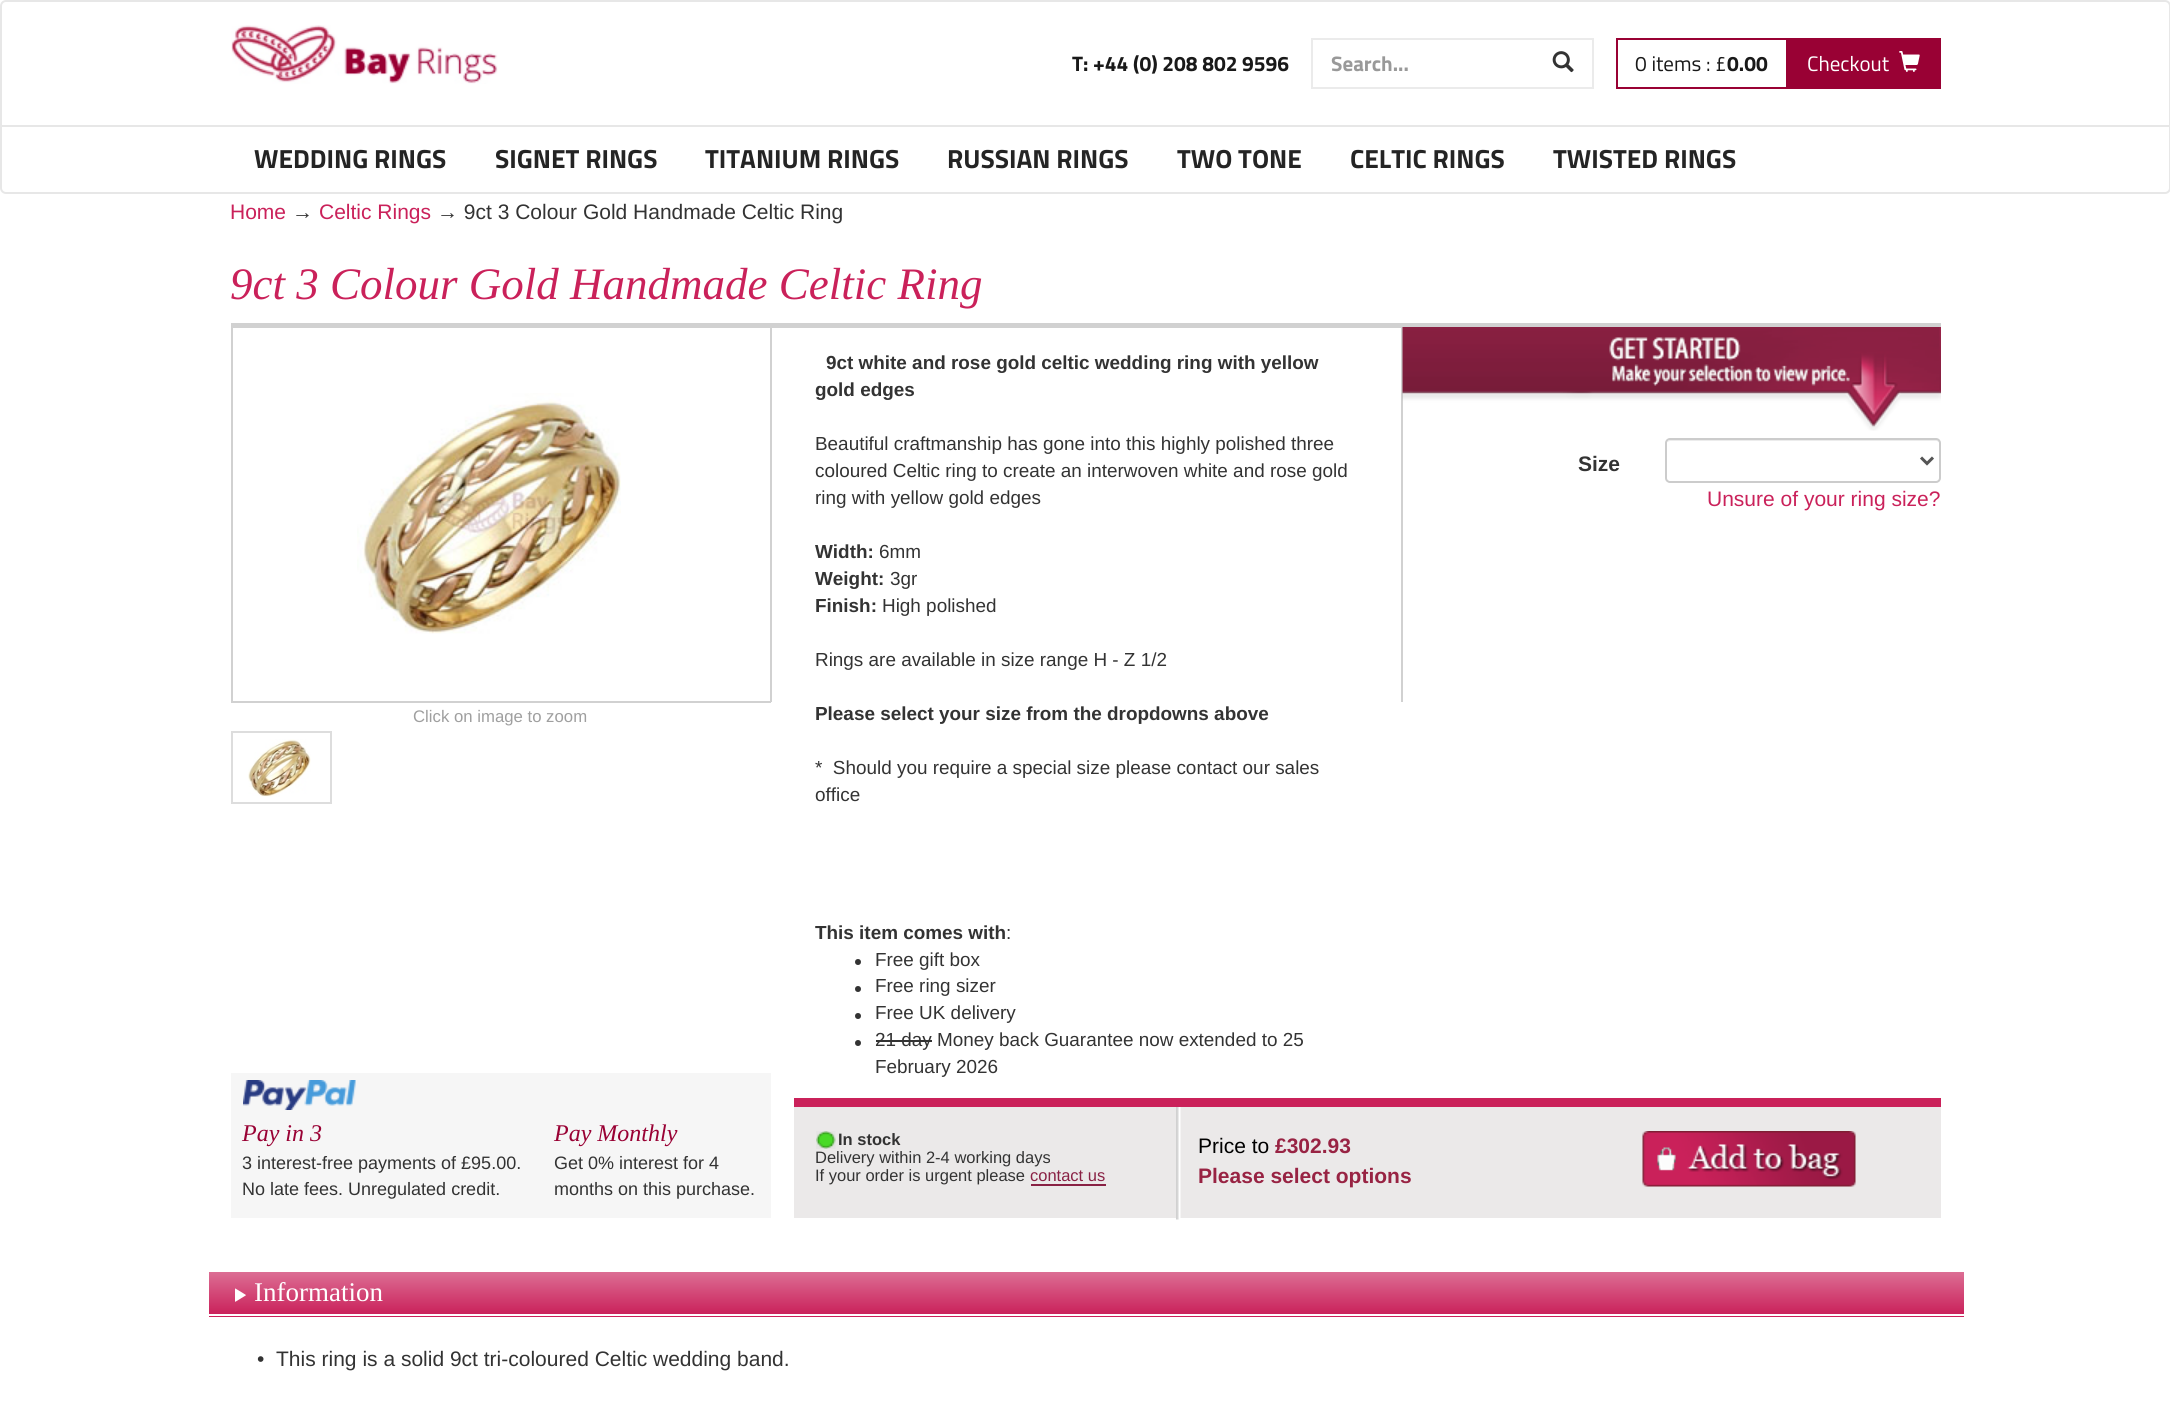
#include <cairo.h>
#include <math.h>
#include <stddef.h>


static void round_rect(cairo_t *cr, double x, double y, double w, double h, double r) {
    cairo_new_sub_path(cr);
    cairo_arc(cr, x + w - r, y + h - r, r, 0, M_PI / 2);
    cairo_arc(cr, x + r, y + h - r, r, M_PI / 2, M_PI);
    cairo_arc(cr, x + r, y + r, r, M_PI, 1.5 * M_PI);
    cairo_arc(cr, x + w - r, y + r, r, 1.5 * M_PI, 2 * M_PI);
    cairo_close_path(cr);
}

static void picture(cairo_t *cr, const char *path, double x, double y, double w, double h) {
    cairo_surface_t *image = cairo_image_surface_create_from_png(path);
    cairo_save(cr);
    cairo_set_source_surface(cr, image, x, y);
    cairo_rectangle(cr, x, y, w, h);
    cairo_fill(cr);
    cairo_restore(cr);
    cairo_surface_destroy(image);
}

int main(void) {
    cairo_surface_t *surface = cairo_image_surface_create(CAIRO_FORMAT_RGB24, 2170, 1401);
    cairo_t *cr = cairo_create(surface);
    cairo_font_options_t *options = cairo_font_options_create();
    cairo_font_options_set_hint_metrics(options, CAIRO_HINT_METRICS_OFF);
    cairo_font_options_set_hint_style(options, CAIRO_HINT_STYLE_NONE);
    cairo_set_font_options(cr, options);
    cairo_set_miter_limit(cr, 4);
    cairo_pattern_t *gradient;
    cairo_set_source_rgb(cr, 1, 1, 1);
    cairo_paint(cr);
    round_rect(cr, 1, 1, 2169, 192, 5);
    cairo_set_source_rgb(cr, 0.906, 0.906, 0.906);
    cairo_stroke(cr);
    picture(cr, "img1.png", 231, 25, 267, 59);
    cairo_select_font_face(cr, "Titillium Web", CAIRO_FONT_SLANT_NORMAL, CAIRO_FONT_WEIGHT_BOLD);
    cairo_set_font_size(cr, 21);
    cairo_set_source_rgb(cr, 0.098, 0.098, 0.098);
    cairo_move_to(cr, 1072, 71);
    cairo_show_text(cr, "T: +44 (0) 208 802 9596");
    cairo_set_source_rgb(cr, 0.918, 0.918, 0.918);
    cairo_rectangle(cr, 1311, 38, 282, 2);
    cairo_fill(cr);
    cairo_rectangle(cr, 1311, 87, 225, 2);
    cairo_fill(cr);
    cairo_rectangle(cr, 1311, 38, 2, 51);
    cairo_fill(cr);
    cairo_set_source_rgb(cr, 0.6, 0.6, 0.6);
    cairo_move_to(cr, 1331, 71);
    cairo_show_text(cr, "Search...");
    cairo_set_source_rgb(cr, 0.918, 0.918, 0.918);
    cairo_rectangle(cr, 1592, 38, 2, 51);
    cairo_fill(cr);
    cairo_rectangle(cr, 1535, 87, 58, 2);
    cairo_fill(cr);
    picture(cr, "img2.png", 1552, 51, 22, 22);
    cairo_rectangle(cr, 1617, 39, 170, 49);
    cairo_set_source_rgb(cr, 0.6, 0.004, 0.204);
    cairo_stroke(cr);
    cairo_select_font_face(cr, "Titillium Web", CAIRO_FONT_SLANT_NORMAL, CAIRO_FONT_WEIGHT_NORMAL);
    cairo_set_source_rgb(cr, 0.098, 0.098, 0.098);
    cairo_move_to(cr, 1635, 71);
    cairo_show_text(cr, "0 items : £");
    cairo_select_font_face(cr, "Titillium Web", CAIRO_FONT_SLANT_NORMAL, CAIRO_FONT_WEIGHT_BOLD);
    cairo_move_to(cr, 1727, 71);
    cairo_show_text(cr, "0.00");
    cairo_set_source_rgb(cr, 0.6, 0.004, 0.204);
    cairo_rectangle(cr, 1788, 38, 153, 51);
    cairo_fill(cr);
    cairo_select_font_face(cr, "Titillium Web", CAIRO_FONT_SLANT_NORMAL, CAIRO_FONT_WEIGHT_NORMAL);
    cairo_set_source_rgb(cr, 1, 1, 1);
    cairo_move_to(cr, 1807, 71);
    cairo_show_text(cr, "Checkout");
    picture(cr, "img3.png", 1899, 51, 21, 21);
    cairo_set_source_rgb(cr, 0.906, 0.906, 0.906);
    cairo_rectangle(cr, 2, 125, 2167, 2);
    cairo_fill(cr);
    cairo_select_font_face(cr, "Titillium Web", CAIRO_FONT_SLANT_NORMAL, CAIRO_FONT_WEIGHT_BOLD);
    cairo_set_font_size(cr, 26.25);
    cairo_set_source_rgb(cr, 0.141, 0.141, 0.141);
    cairo_move_to(cr, 254, 168);
    cairo_show_text(cr, "WEDDING RINGS");
    cairo_move_to(cr, 495, 168);
    cairo_show_text(cr, "SIGNET RINGS");
    cairo_move_to(cr, 705, 168);
    cairo_show_text(cr, "TITANIUM RINGS");
    cairo_move_to(cr, 947, 168);
    cairo_show_text(cr, "RUSSIAN RINGS");
    cairo_move_to(cr, 1177, 168);
    cairo_show_text(cr, "TWO TONE");
    cairo_move_to(cr, 1350, 168);
    cairo_show_text(cr, "CELTIC RINGS");
    cairo_move_to(cr, 1553, 168);
    cairo_show_text(cr, "TWISTED RINGS");
    cairo_select_font_face(cr, "Liberation Sans", CAIRO_FONT_SLANT_NORMAL, CAIRO_FONT_WEIGHT_NORMAL);
    cairo_set_font_size(cr, 21);
    cairo_set_source_rgb(cr, 0.792, 0.129, 0.353);
    cairo_move_to(cr, 230, 219);
    cairo_show_text(cr, "Home");
    cairo_set_source_rgb(cr, 0.2, 0.2, 0.2);
    cairo_move_to(cr, 292, 219);
    cairo_show_text(cr, "→");
    cairo_set_source_rgb(cr, 0.792, 0.129, 0.353);
    cairo_move_to(cr, 319, 219);
    cairo_show_text(cr, "Celtic Rings");
    cairo_set_source_rgb(cr, 0.2, 0.2, 0.2);
    cairo_move_to(cr, 437, 219);
    cairo_show_text(cr, "→ 9ct 3 Colour Gold Handmade Celtic Ring");
    cairo_select_font_face(cr, "Liberation Serif", CAIRO_FONT_SLANT_ITALIC, CAIRO_FONT_WEIGHT_NORMAL);
    cairo_set_font_size(cr, 45);
    cairo_set_source_rgb(cr, 0.792, 0.129, 0.353);
    cairo_move_to(cr, 230, 299);
    cairo_show_text(cr, "9ct 3 Colour Gold Handmade Celtic Ring");
    cairo_set_source_rgb(cr, 0.82, 0.82, 0.82);
    cairo_rectangle(cr, 231, 323, 1710, 5);
    cairo_fill(cr);
    cairo_rectangle(cr, 770, 327, 2, 375);
    cairo_fill(cr);
    cairo_rectangle(cr, 231, 701, 540, 2);
    cairo_fill(cr);
    cairo_rectangle(cr, 231, 327, 2, 375);
    cairo_fill(cr);
    picture(cr, "img4.png", 357, 393, 264, 241);
    cairo_select_font_face(cr, "Liberation Sans", CAIRO_FONT_SLANT_NORMAL, CAIRO_FONT_WEIGHT_NORMAL);
    cairo_set_font_size(cr, 16.75);
    cairo_set_source_rgb(cr, 0.624, 0.624, 0.624);
    cairo_move_to(cr, 413, 722);
    cairo_show_text(cr, "Click on image to zoom");
    cairo_rectangle(cr, 232, 732, 99, 71);
    cairo_set_source_rgb(cr, 0.867, 0.867, 0.867);
    cairo_stroke(cr);
    picture(cr, "img5.png", 248, 739, 63, 58);
    cairo_set_source_rgb(cr, 0.961, 0.961, 0.961);
    cairo_rectangle(cr, 231, 1073, 540, 145);
    cairo_fill(cr);
    picture(cr, "img6.png", 243, 1080, 113, 30);
    cairo_select_font_face(cr, "Liberation Serif", CAIRO_FONT_SLANT_ITALIC, CAIRO_FONT_WEIGHT_NORMAL);
    cairo_set_font_size(cr, 24);
    cairo_set_source_rgb(cr, 0.6, 0.004, 0.204);
    cairo_move_to(cr, 242, 1141);
    cairo_show_text(cr, "Pay in 3");
    cairo_select_font_face(cr, "Liberation Sans", CAIRO_FONT_SLANT_NORMAL, CAIRO_FONT_WEIGHT_NORMAL);
    cairo_set_font_size(cr, 18);
    cairo_set_source_rgb(cr, 0.2, 0.2, 0.2);
    cairo_move_to(cr, 242, 1169);
    cairo_show_text(cr, "3 interest-free payments of £95.00.");
    cairo_move_to(cr, 242, 1195);
    cairo_show_text(cr, "No late fees. Unregulated credit.");
    cairo_select_font_face(cr, "Liberation Serif", CAIRO_FONT_SLANT_ITALIC, CAIRO_FONT_WEIGHT_NORMAL);
    cairo_set_font_size(cr, 24);
    cairo_set_source_rgb(cr, 0.6, 0.004, 0.204);
    cairo_move_to(cr, 554, 1141);
    cairo_show_text(cr, "Pay Monthly");
    cairo_select_font_face(cr, "Liberation Sans", CAIRO_FONT_SLANT_NORMAL, CAIRO_FONT_WEIGHT_NORMAL);
    cairo_set_font_size(cr, 18);
    cairo_set_source_rgb(cr, 0.2, 0.2, 0.2);
    cairo_move_to(cr, 554, 1169);
    cairo_show_text(cr, "Get 0% interest for 4");
    cairo_move_to(cr, 554, 1195);
    cairo_show_text(cr, "months on this purchase.");
    cairo_select_font_face(cr, "Liberation Sans", CAIRO_FONT_SLANT_NORMAL, CAIRO_FONT_WEIGHT_BOLD);
    cairo_set_font_size(cr, 18.9);
    cairo_move_to(cr, 826, 369);
    cairo_show_text(cr, "9ct white and rose gold celtic wedding ring with yellow");
    cairo_move_to(cr, 815, 396);
    cairo_show_text(cr, "gold edges");
    cairo_select_font_face(cr, "Liberation Sans", CAIRO_FONT_SLANT_NORMAL, CAIRO_FONT_WEIGHT_NORMAL);
    cairo_move_to(cr, 815, 450);
    cairo_show_text(cr, "Beautiful craftmanship has gone into this highly polished three");
    cairo_move_to(cr, 815, 477);
    cairo_show_text(cr, "coloured Celtic ring to create an interwoven white and rose gold");
    cairo_move_to(cr, 815, 504);
    cairo_show_text(cr, "ring with yellow gold edges");
    cairo_select_font_face(cr, "Liberation Sans", CAIRO_FONT_SLANT_NORMAL, CAIRO_FONT_WEIGHT_BOLD);
    cairo_move_to(cr, 815, 558);
    cairo_show_text(cr, "Width:");
    cairo_select_font_face(cr, "Liberation Sans", CAIRO_FONT_SLANT_NORMAL, CAIRO_FONT_WEIGHT_NORMAL);
    cairo_move_to(cr, 879, 558);
    cairo_show_text(cr, "6mm");
    cairo_select_font_face(cr, "Liberation Sans", CAIRO_FONT_SLANT_NORMAL, CAIRO_FONT_WEIGHT_BOLD);
    cairo_move_to(cr, 815, 585);
    cairo_show_text(cr, "Weight:");
    cairo_select_font_face(cr, "Liberation Sans", CAIRO_FONT_SLANT_NORMAL, CAIRO_FONT_WEIGHT_NORMAL);
    cairo_move_to(cr, 890, 585);
    cairo_show_text(cr, "3gr");
    cairo_select_font_face(cr, "Liberation Sans", CAIRO_FONT_SLANT_NORMAL, CAIRO_FONT_WEIGHT_BOLD);
    cairo_move_to(cr, 815, 612);
    cairo_show_text(cr, "Finish:");
    cairo_select_font_face(cr, "Liberation Sans", CAIRO_FONT_SLANT_NORMAL, CAIRO_FONT_WEIGHT_NORMAL);
    cairo_move_to(cr, 882, 612);
    cairo_show_text(cr, "High polished");
    cairo_move_to(cr, 815, 666);
    cairo_show_text(cr, "Rings are available in size range H - Z 1/2");
    cairo_select_font_face(cr, "Liberation Sans", CAIRO_FONT_SLANT_NORMAL, CAIRO_FONT_WEIGHT_BOLD);
    cairo_move_to(cr, 815, 720);
    cairo_show_text(cr, "Please select your size from the dropdowns above");
    cairo_select_font_face(cr, "Liberation Sans", CAIRO_FONT_SLANT_NORMAL, CAIRO_FONT_WEIGHT_NORMAL);
    cairo_move_to(cr, 815, 774);
    cairo_show_text(cr, "*  Should you require a special size please contact our sales");
    cairo_move_to(cr, 815, 801);
    cairo_show_text(cr, "office");
    cairo_select_font_face(cr, "Liberation Sans", CAIRO_FONT_SLANT_NORMAL, CAIRO_FONT_WEIGHT_BOLD);
    cairo_move_to(cr, 815, 939);
    cairo_show_text(cr, "This item comes with");
    cairo_select_font_face(cr, "Liberation Sans", CAIRO_FONT_SLANT_NORMAL, CAIRO_FONT_WEIGHT_NORMAL);
    cairo_move_to(cr, 1006, 939);
    cairo_show_text(cr, ":");
    cairo_new_path(cr);
    cairo_arc(cr, 858, 962, 3, 0, 2 * M_PI);
    cairo_fill(cr);
    cairo_move_to(cr, 875, 966);
    cairo_show_text(cr, "Free gift box");
    cairo_new_path(cr);
    cairo_arc(cr, 858, 989, 3, 0, 2 * M_PI);
    cairo_fill(cr);
    cairo_move_to(cr, 875, 992);
    cairo_show_text(cr, "Free ring sizer");
    cairo_new_path(cr);
    cairo_arc(cr, 858, 1016, 3, 0, 2 * M_PI);
    cairo_fill(cr);
    cairo_move_to(cr, 875, 1019);
    cairo_show_text(cr, "Free UK delivery");
    cairo_new_path(cr);
    cairo_arc(cr, 858, 1043, 3, 0, 2 * M_PI);
    cairo_fill(cr);
    cairo_move_to(cr, 875, 1046);
    cairo_show_text(cr, "21 day Money back Guarantee now extended to 25");
    cairo_rectangle(cr, 876, 1040, 56, 2);
    cairo_fill(cr);
    cairo_move_to(cr, 875, 1073);
    cairo_show_text(cr, "February 2026");
    cairo_set_source_rgb(cr, 0.82, 0.82, 0.82);
    cairo_rectangle(cr, 1401, 327, 2, 375);
    cairo_fill(cr);
    picture(cr, "img7.png", 1402, 327, 539, 104);
    cairo_select_font_face(cr, "Liberation Sans", CAIRO_FONT_SLANT_NORMAL, CAIRO_FONT_WEIGHT_BOLD);
    cairo_set_font_size(cr, 21);
    cairo_set_source_rgb(cr, 0.2, 0.2, 0.2);
    cairo_move_to(cr, 1578, 471);
    cairo_show_text(cr, "Size");
    cairo_set_source_rgb(cr, 0.925, 0.925, 0.925);
    cairo_new_path(cr);
    cairo_move_to(cr, 1670, 441);
    cairo_line_to(cr, 1937, 441);
    cairo_line_to(cr, 1940, 443);
    cairo_line_to(cr, 1940, 444);
    cairo_line_to(cr, 1940, 443);
    cairo_curve_to(cr, 1940, 441, 1939, 440, 1937, 440);
    cairo_line_to(cr, 1670, 440);
    cairo_curve_to(cr, 1669, 440, 1668, 441, 1667, 442);
    cairo_close_path(cr);
    cairo_fill(cr);
    round_rect(cr, 1666, 439, 274, 43, 4);
    cairo_set_source_rgb(cr, 0.8, 0.8, 0.8);
    cairo_stroke(cr);
    cairo_new_path(cr);
    cairo_move_to(cr, 1921, 457.5);
    cairo_line_to(cr, 1927, 463.5);
    cairo_line_to(cr, 1933, 457.5);
    cairo_set_source_rgb(cr, 0.333, 0.333, 0.333);
    cairo_set_line_width(cr, 3);
    cairo_stroke(cr);
    cairo_select_font_face(cr, "Liberation Sans", CAIRO_FONT_SLANT_NORMAL, CAIRO_FONT_WEIGHT_NORMAL);
    cairo_set_source_rgb(cr, 0.792, 0.129, 0.353);
    cairo_move_to(cr, 1707, 506);
    cairo_show_text(cr, "Unsure of your ring size?");
    cairo_set_source_rgb(cr, 0.918, 0.914, 0.914);
    cairo_rectangle(cr, 794, 1107, 1147, 111);
    cairo_fill(cr);
    cairo_set_source_rgb(cr, 0.792, 0.129, 0.353);
    cairo_rectangle(cr, 794, 1098, 1147, 9);
    cairo_fill(cr);
    picture(cr, "img8.png", 816, 1131, 20, 18);
    cairo_select_font_face(cr, "Liberation Sans", CAIRO_FONT_SLANT_NORMAL, CAIRO_FONT_WEIGHT_BOLD);
    cairo_set_font_size(cr, 16.5);
    cairo_set_source_rgb(cr, 0.2, 0.2, 0.2);
    cairo_move_to(cr, 838, 1145);
    cairo_show_text(cr, "In stock");
    cairo_select_font_face(cr, "Liberation Sans", CAIRO_FONT_SLANT_NORMAL, CAIRO_FONT_WEIGHT_NORMAL);
    cairo_move_to(cr, 815, 1163);
    cairo_show_text(cr, "Delivery within 2-4 working days");
    cairo_move_to(cr, 815, 1181);
    cairo_show_text(cr, "If your order is urgent please");
    cairo_set_source_rgb(cr, 0.537, 0.129, 0.267);
    cairo_move_to(cr, 1030, 1181);
    cairo_show_text(cr, "contact us");
    cairo_rectangle(cr, 1031, 1184, 75, 2);
    cairo_fill(cr);
    picture(cr, "img9.png", 1176, 1107, 5, 113);
    cairo_set_font_size(cr, 21);
    cairo_set_source_rgb(cr, 0, 0, 0);
    cairo_move_to(cr, 1198, 1153);
    cairo_show_text(cr, "Price to");
    cairo_select_font_face(cr, "Liberation Sans", CAIRO_FONT_SLANT_NORMAL, CAIRO_FONT_WEIGHT_BOLD);
    cairo_set_source_rgb(cr, 0.596, 0.137, 0.263);
    cairo_move_to(cr, 1275, 1153);
    cairo_show_text(cr, "£302.93");
    cairo_move_to(cr, 1198, 1183);
    cairo_show_text(cr, "Please select options");
    picture(cr, "img10.png", 1642, 1131, 214, 56);
    cairo_set_source_rgb(cr, 0.792, 0.129, 0.353);
    cairo_new_path(cr);
    cairo_move_to(cr, 209, 1316);
    cairo_line_to(cr, 209, 1317);
    cairo_line_to(cr, 1964, 1317);
    cairo_line_to(cr, 1964, 1274);
    cairo_line_to(cr, 1964, 1316);
    cairo_close_path(cr);
    cairo_fill(cr);
    gradient = cairo_pattern_create_linear(209, 1272, 209, 1314);
    cairo_pattern_add_color_stop_rgba(gradient, 0, 0.863, 0.431, 0.58, 1);
    cairo_pattern_add_color_stop_rgba(gradient, 1, 0.792, 0.133, 0.357, 1);
    cairo_set_source(cr, gradient);
    cairo_pattern_destroy(gradient);
    cairo_rectangle(cr, 209, 1272, 1755, 42);
    cairo_fill(cr);
    picture(cr, "img11.png", 235, 1288, 11, 14);
    cairo_select_font_face(cr, "Liberation Serif", CAIRO_FONT_SLANT_NORMAL, CAIRO_FONT_WEIGHT_NORMAL);
    cairo_set_font_size(cr, 27);
    cairo_set_source_rgb(cr, 1, 1, 1);
    cairo_move_to(cr, 254, 1301);
    cairo_show_text(cr, "Information");
    cairo_select_font_face(cr, "Liberation Sans", CAIRO_FONT_SLANT_NORMAL, CAIRO_FONT_WEIGHT_NORMAL);
    cairo_set_font_size(cr, 21);
    cairo_set_source_rgb(cr, 0.2, 0.2, 0.2);
    cairo_move_to(cr, 257, 1366);
    cairo_show_text(cr, "•  This ring is a solid 9ct tri-coloured Celtic wedding band.");
    cairo_surface_write_to_png(surface, "page.png");
    cairo_font_options_destroy(options);
    cairo_destroy(cr);
    cairo_surface_destroy(surface);
    return 0;
}
